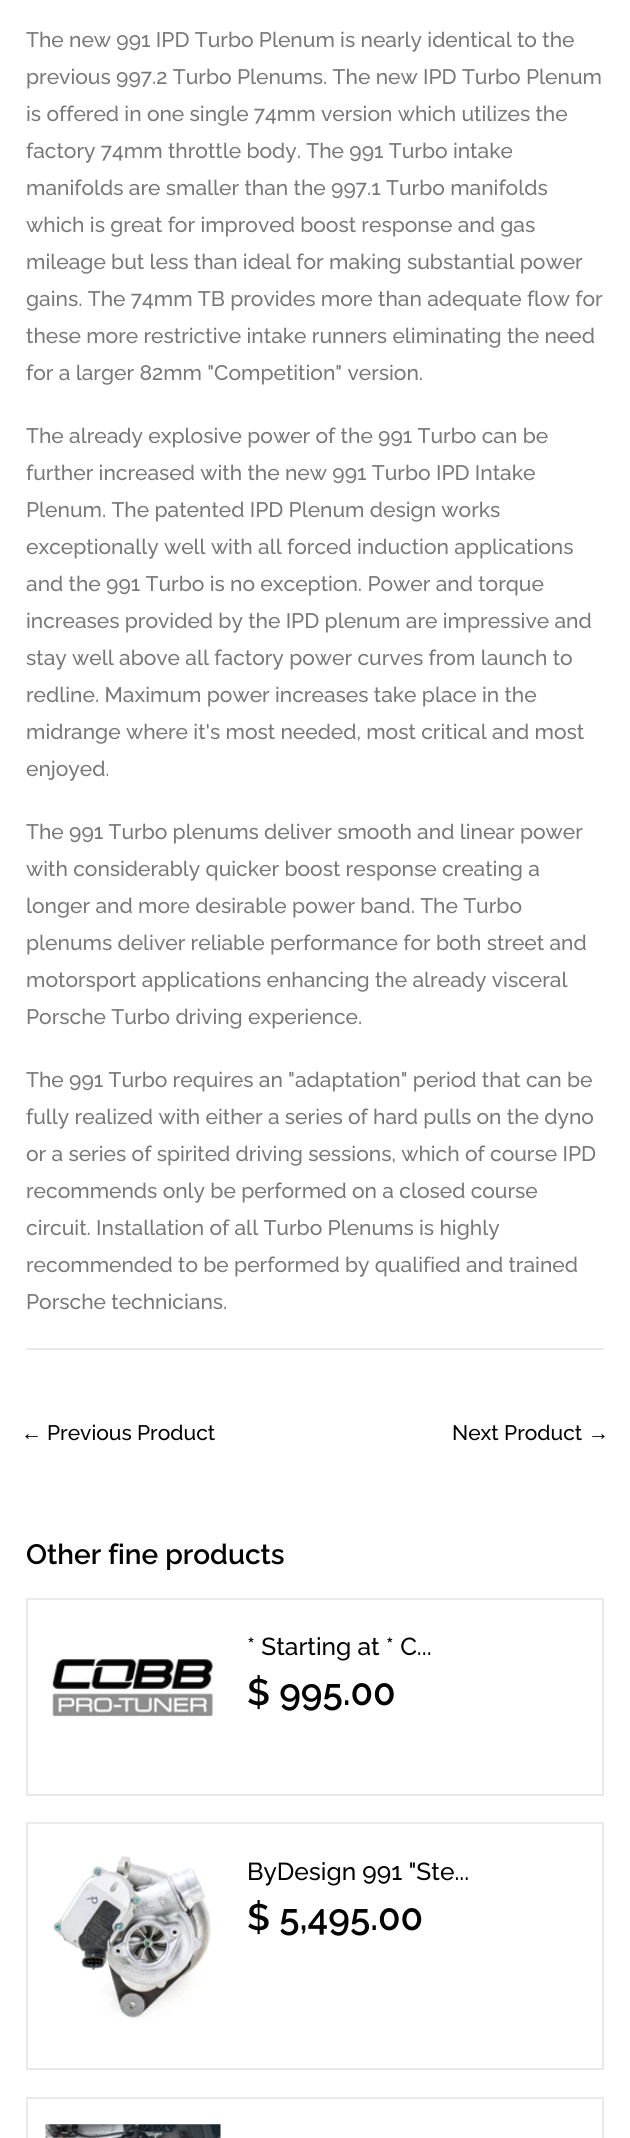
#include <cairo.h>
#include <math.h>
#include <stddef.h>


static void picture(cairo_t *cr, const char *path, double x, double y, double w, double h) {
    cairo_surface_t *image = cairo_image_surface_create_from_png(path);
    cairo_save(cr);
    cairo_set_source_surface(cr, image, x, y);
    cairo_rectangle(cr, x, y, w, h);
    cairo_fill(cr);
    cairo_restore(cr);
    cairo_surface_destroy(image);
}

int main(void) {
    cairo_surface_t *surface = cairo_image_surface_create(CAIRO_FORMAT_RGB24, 630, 2138);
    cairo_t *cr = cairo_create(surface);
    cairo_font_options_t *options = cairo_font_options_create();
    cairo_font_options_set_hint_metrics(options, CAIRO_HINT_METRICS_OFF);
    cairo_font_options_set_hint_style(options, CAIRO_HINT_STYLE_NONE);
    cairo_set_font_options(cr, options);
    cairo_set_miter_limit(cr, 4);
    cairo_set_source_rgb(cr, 1, 1, 1);
    cairo_paint(cr);
    cairo_select_font_face(cr, "Raleway Medium", CAIRO_FONT_SLANT_NORMAL, CAIRO_FONT_WEIGHT_NORMAL);
    cairo_set_font_size(cr, 21);
    cairo_set_source_rgb(cr, 0.471, 0.471, 0.471);
    cairo_move_to(cr, 26, 47);
    cairo_show_text(cr, "The new 991 IPD Turbo Plenum is nearly identical to the");
    cairo_move_to(cr, 26, 84);
    cairo_show_text(cr, "previous 997.2 Turbo Plenums. The new IPD Turbo Plenum");
    cairo_move_to(cr, 26, 121);
    cairo_show_text(cr, "is offered in one single 74mm version which utilizes the");
    cairo_move_to(cr, 26, 158);
    cairo_show_text(cr, "factory 74mm throttle body. The 991 Turbo intake");
    cairo_move_to(cr, 26, 195);
    cairo_show_text(cr, "manifolds are smaller than the 997.1 Turbo manifolds");
    cairo_move_to(cr, 26, 232);
    cairo_show_text(cr, "which is great for improved boost response and gas");
    cairo_move_to(cr, 26, 269);
    cairo_show_text(cr, "mileage but less than ideal for making substantial power");
    cairo_move_to(cr, 26, 306);
    cairo_show_text(cr, "gains. The 74mm TB provides more than adequate flow for");
    cairo_move_to(cr, 26, 343);
    cairo_show_text(cr, "these more restrictive intake runners eliminating the need");
    cairo_move_to(cr, 26, 380);
    cairo_show_text(cr, "for a larger 82mm \"Competition\" version.");
    cairo_move_to(cr, 26, 443);
    cairo_show_text(cr, "The already explosive power of the 991 Turbo can be");
    cairo_move_to(cr, 26, 480);
    cairo_show_text(cr, "further increased with the new 991 Turbo IPD Intake");
    cairo_move_to(cr, 26, 517);
    cairo_show_text(cr, "Plenum. The patented IPD Plenum design works");
    cairo_move_to(cr, 26, 554);
    cairo_show_text(cr, "exceptionally well with all forced induction applications");
    cairo_move_to(cr, 26, 591);
    cairo_show_text(cr, "and the 991 Turbo is no exception. Power and torque");
    cairo_move_to(cr, 26, 628);
    cairo_show_text(cr, "increases provided by the IPD plenum are impressive and");
    cairo_move_to(cr, 26, 665);
    cairo_show_text(cr, "stay well above all factory power curves from launch to");
    cairo_move_to(cr, 26, 702);
    cairo_show_text(cr, "redline. Maximum power increases take place in the");
    cairo_move_to(cr, 26, 739);
    cairo_show_text(cr, "midrange where it's most needed, most critical and most");
    cairo_move_to(cr, 26, 776);
    cairo_show_text(cr, "enjoyed.");
    cairo_move_to(cr, 26, 839);
    cairo_show_text(cr, "The 991 Turbo plenums deliver smooth and linear power");
    cairo_move_to(cr, 26, 876);
    cairo_show_text(cr, "with considerably quicker boost response creating a");
    cairo_move_to(cr, 26, 913);
    cairo_show_text(cr, "longer and more desirable power band. The Turbo");
    cairo_move_to(cr, 26, 950);
    cairo_show_text(cr, "plenums deliver reliable performance for both street and");
    cairo_move_to(cr, 26, 987);
    cairo_show_text(cr, "motorsport applications enhancing the already visceral");
    cairo_move_to(cr, 26, 1024);
    cairo_show_text(cr, "Porsche Turbo driving experience.");
    cairo_move_to(cr, 26, 1087);
    cairo_show_text(cr, "The 991 Turbo requires an \"adaptation\" period that can be");
    cairo_move_to(cr, 26, 1124);
    cairo_show_text(cr, "fully realized with either a series of hard pulls on the dyno");
    cairo_move_to(cr, 26, 1161);
    cairo_show_text(cr, "or a series of spirited driving sessions, which of course IPD");
    cairo_move_to(cr, 26, 1198);
    cairo_show_text(cr, "recommends only be performed on a closed course");
    cairo_move_to(cr, 26, 1235);
    cairo_show_text(cr, "circuit. Installation of all Turbo Plenums is highly");
    cairo_move_to(cr, 26, 1272);
    cairo_show_text(cr, "recommended to be performed by qualified and trained");
    cairo_move_to(cr, 26, 1309);
    cairo_show_text(cr, "Porsche technicians.");
    cairo_set_source_rgb(cr, 0.918, 0.914, 0.914);
    cairo_rectangle(cr, 26, 1348, 578, 2);
    cairo_fill(cr);
    cairo_select_font_face(cr, "Liberation Serif", CAIRO_FONT_SLANT_NORMAL, CAIRO_FONT_WEIGHT_NORMAL);
    cairo_set_source_rgb(cr, 0.012, 0.012, 0.012);
    cairo_move_to(cr, 21, 1440);
    cairo_show_text(cr, "←");
    cairo_select_font_face(cr, "Raleway Medium", CAIRO_FONT_SLANT_NORMAL, CAIRO_FONT_WEIGHT_NORMAL);
    cairo_move_to(cr, 47, 1440);
    cairo_show_text(cr, "Previous Product");
    cairo_move_to(cr, 452, 1440);
    cairo_show_text(cr, "Next Product");
    cairo_select_font_face(cr, "Liberation Serif", CAIRO_FONT_SLANT_NORMAL, CAIRO_FONT_WEIGHT_NORMAL);
    cairo_move_to(cr, 588, 1440);
    cairo_show_text(cr, "→");
    cairo_select_font_face(cr, "Raleway SemiBold", CAIRO_FONT_SLANT_NORMAL, CAIRO_FONT_WEIGHT_NORMAL);
    cairo_set_font_size(cr, 28);
    cairo_move_to(cr, 26, 1564);
    cairo_show_text(cr, "Other fine products");
    cairo_rectangle(cr, 27, 1599, 576, 196);
    cairo_set_source_rgb(cr, 0.918, 0.914, 0.914);
    cairo_stroke(cr);
    picture(cr, "img1.png", 50, 1657, 166, 60);
    cairo_select_font_face(cr, "Raleway Medium", CAIRO_FONT_SLANT_NORMAL, CAIRO_FONT_WEIGHT_NORMAL);
    cairo_set_font_size(cr, 24.5);
    cairo_set_source_rgb(cr, 0.012, 0.012, 0.012);
    cairo_move_to(cr, 247, 1655);
    cairo_show_text(cr, "* Starting at * C...");
    cairo_select_font_face(cr, "Raleway SemiBold", CAIRO_FONT_SLANT_NORMAL, CAIRO_FONT_WEIGHT_NORMAL);
    cairo_set_font_size(cr, 36.75);
    cairo_move_to(cr, 247, 1705);
    cairo_show_text(cr, "$ 995.00");
    cairo_rectangle(cr, 27, 1823, 576, 246);
    cairo_set_source_rgb(cr, 0.918, 0.914, 0.914);
    cairo_stroke(cr);
    picture(cr, "img2.png", 53, 1856, 159, 164);
    cairo_select_font_face(cr, "Raleway Medium", CAIRO_FONT_SLANT_NORMAL, CAIRO_FONT_WEIGHT_NORMAL);
    cairo_set_font_size(cr, 24.5);
    cairo_set_source_rgb(cr, 0.012, 0.012, 0.012);
    cairo_move_to(cr, 247, 1880);
    cairo_show_text(cr, "ByDesign 991 \"Ste...");
    cairo_select_font_face(cr, "Raleway SemiBold", CAIRO_FONT_SLANT_NORMAL, CAIRO_FONT_WEIGHT_NORMAL);
    cairo_set_font_size(cr, 36.75);
    cairo_move_to(cr, 247, 1930);
    cairo_show_text(cr, "$ 5,495.00");
    cairo_rectangle(cr, 27, 2098, 576, 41);
    cairo_set_source_rgb(cr, 0.918, 0.914, 0.914);
    cairo_stroke(cr);
    picture(cr, "img3.png", 45, 2124, 176, 14);
    cairo_surface_write_to_png(surface, "page.png");
    cairo_font_options_destroy(options);
    cairo_destroy(cr);
    cairo_surface_destroy(surface);
    return 0;
}
